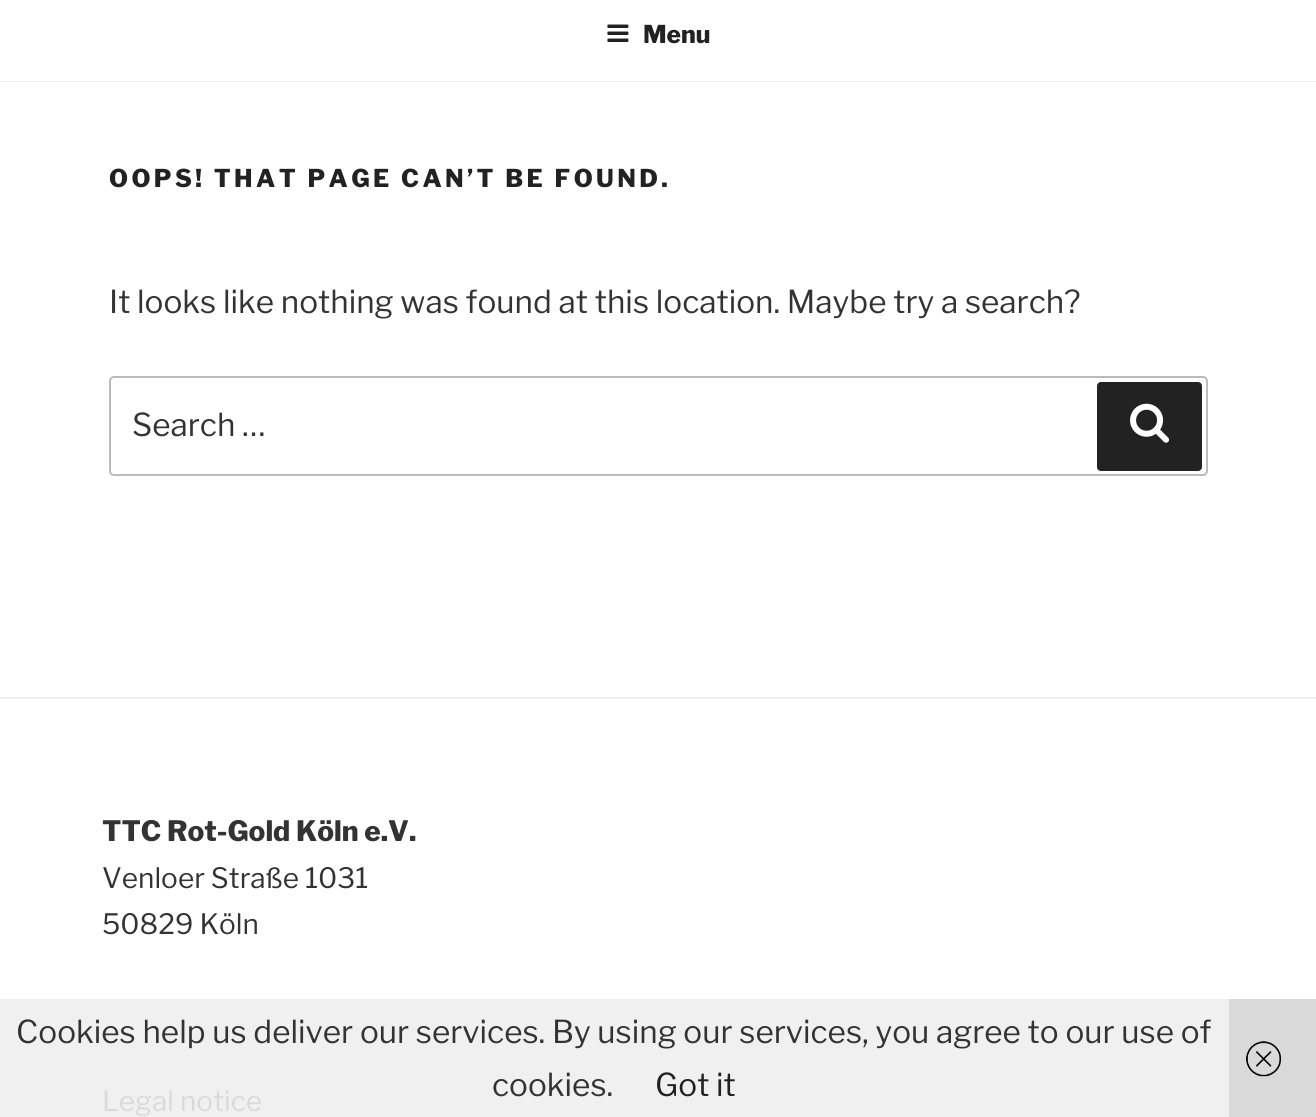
#include <cairo.h>
#include <math.h>
#include <stddef.h>


static void spaced_text(cairo_t *cr, double x, double y, const char *s, double letter, double word) {
    cairo_move_to(cr, x, y);
    while (*s) {
        char ch[5] = {0};
        int n = 0;
        do ch[n++] = *s++; while ((*s & 0xC0) == 0x80);
        cairo_show_text(cr, ch);
        cairo_rel_move_to(cr, letter + word * (*ch == ' '), 0);
    }
}

static void round_rect(cairo_t *cr, double x, double y, double w, double h, double r) {
    cairo_new_sub_path(cr);
    cairo_arc(cr, x + w - r, y + h - r, r, 0, M_PI / 2);
    cairo_arc(cr, x + r, y + h - r, r, M_PI / 2, M_PI);
    cairo_arc(cr, x + r, y + r, r, M_PI, 1.5 * M_PI);
    cairo_arc(cr, x + w - r, y + r, r, 1.5 * M_PI, 2 * M_PI);
    cairo_close_path(cr);
}

static void picture(cairo_t *cr, const char *path, double x, double y, double w, double h) {
    cairo_surface_t *image = cairo_image_surface_create_from_png(path);
    cairo_save(cr);
    cairo_set_source_surface(cr, image, x, y);
    cairo_rectangle(cr, x, y, w, h);
    cairo_fill(cr);
    cairo_restore(cr);
    cairo_surface_destroy(image);
}

int main(void) {
    cairo_surface_t *surface = cairo_image_surface_create(CAIRO_FORMAT_RGB24, 1316, 1117);
    cairo_t *cr = cairo_create(surface);
    cairo_font_options_t *options = cairo_font_options_create();
    cairo_font_options_set_hint_metrics(options, CAIRO_HINT_METRICS_OFF);
    cairo_font_options_set_hint_style(options, CAIRO_HINT_STYLE_NONE);
    cairo_set_font_options(cr, options);
    cairo_set_miter_limit(cr, 4);
    cairo_set_source_rgb(cr, 1, 1, 1);
    cairo_paint(cr);
    cairo_set_source_rgb(cr, 0.933, 0.933, 0.933);
    cairo_rectangle(cr, 0, 81, 1316, 1);
    cairo_fill(cr);
    picture(cr, "img1.png", 607, 24, 22, 18);
    cairo_select_font_face(cr, "Libre Franklin Thin", CAIRO_FONT_SLANT_NORMAL, CAIRO_FONT_WEIGHT_NORMAL);
    cairo_set_font_size(cr, 24.5);
    cairo_set_source_rgb(cr, 0.133, 0.133, 0.133);
    cairo_move_to(cr, 643, 43);
    cairo_show_text(cr, "Menu");
    cairo_set_source_rgb(cr, 0.941, 0.941, 0.941);
    cairo_rectangle(cr, 0, 999, 1229, 118);
    cairo_fill(cr);
    cairo_set_source_rgb(cr, 0.133, 0.133, 0.133);
    spaced_text(cr, 109, 187, "OOPS! THAT PAGE CAN’T BE FOUND.", 3.4, 0);
    cairo_select_font_face(cr, "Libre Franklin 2 Thin", CAIRO_FONT_SLANT_NORMAL, CAIRO_FONT_WEIGHT_NORMAL);
    cairo_set_font_size(cr, 31.5);
    cairo_set_source_rgb(cr, 0.2, 0.2, 0.2);
    cairo_move_to(cr, 109, 313);
    cairo_show_text(cr, "It looks like nothing was found at this location. Maybe try a search?");
    round_rect(cr, 110, 377, 1097, 98, 4);
    cairo_set_source_rgb(cr, 0.733, 0.733, 0.733);
    cairo_stroke(cr);
    cairo_set_source_rgb(cr, 0.2, 0.2, 0.2);
    cairo_move_to(cr, 132, 436);
    cairo_show_text(cr, "Search …");
    cairo_set_source_rgb(cr, 0.133, 0.133, 0.133);
    round_rect(cr, 1097, 382, 105, 89, 4);
    cairo_fill(cr);
    picture(cr, "img2.png", 1130, 403, 39, 40);
    cairo_set_source_rgb(cr, 0.933, 0.933, 0.933);
    cairo_rectangle(cr, 0, 697, 1316, 2);
    cairo_fill(cr);
    cairo_select_font_face(cr, "Libre Franklin Thin", CAIRO_FONT_SLANT_NORMAL, CAIRO_FONT_WEIGHT_NORMAL);
    cairo_set_font_size(cr, 28);
    cairo_set_source_rgb(cr, 0.2, 0.2, 0.2);
    cairo_move_to(cr, 102, 841);
    cairo_show_text(cr, "TTC Rot-Gold Köln e.V.");
    cairo_select_font_face(cr, "Libre Franklin 2 Thin", CAIRO_FONT_SLANT_NORMAL, CAIRO_FONT_WEIGHT_NORMAL);
    cairo_move_to(cr, 102, 888);
    cairo_show_text(cr, "Venloer Straße 1031");
    cairo_move_to(cr, 102, 934);
    cairo_show_text(cr, "50829 Köln");
    cairo_set_source_rgb(cr, 0.855, 0.855, 0.855);
    cairo_move_to(cr, 102, 1111);
    cairo_show_text(cr, "Legal notice");
    cairo_set_font_size(cr, 31.5);
    cairo_set_source_rgb(cr, 0.2, 0.2, 0.2);
    cairo_move_to(cr, 16, 1043);
    cairo_show_text(cr, "Cookies help us deliver our services. By using our services, you agree to our use of");
    cairo_move_to(cr, 492, 1096);
    cairo_show_text(cr, "cookies.");
    cairo_set_source_rgb(cr, 0.133, 0.133, 0.133);
    cairo_move_to(cr, 655, 1096);
    cairo_show_text(cr, "Got it");
    cairo_set_source_rgb(cr, 0.855, 0.855, 0.855);
    cairo_rectangle(cr, 1229, 999, 87, 118);
    cairo_fill(cr);
    picture(cr, "img3.png", 1246, 1041, 35, 36);
    cairo_surface_write_to_png(surface, "page.png");
    cairo_font_options_destroy(options);
    cairo_destroy(cr);
    cairo_surface_destroy(surface);
    return 0;
}
